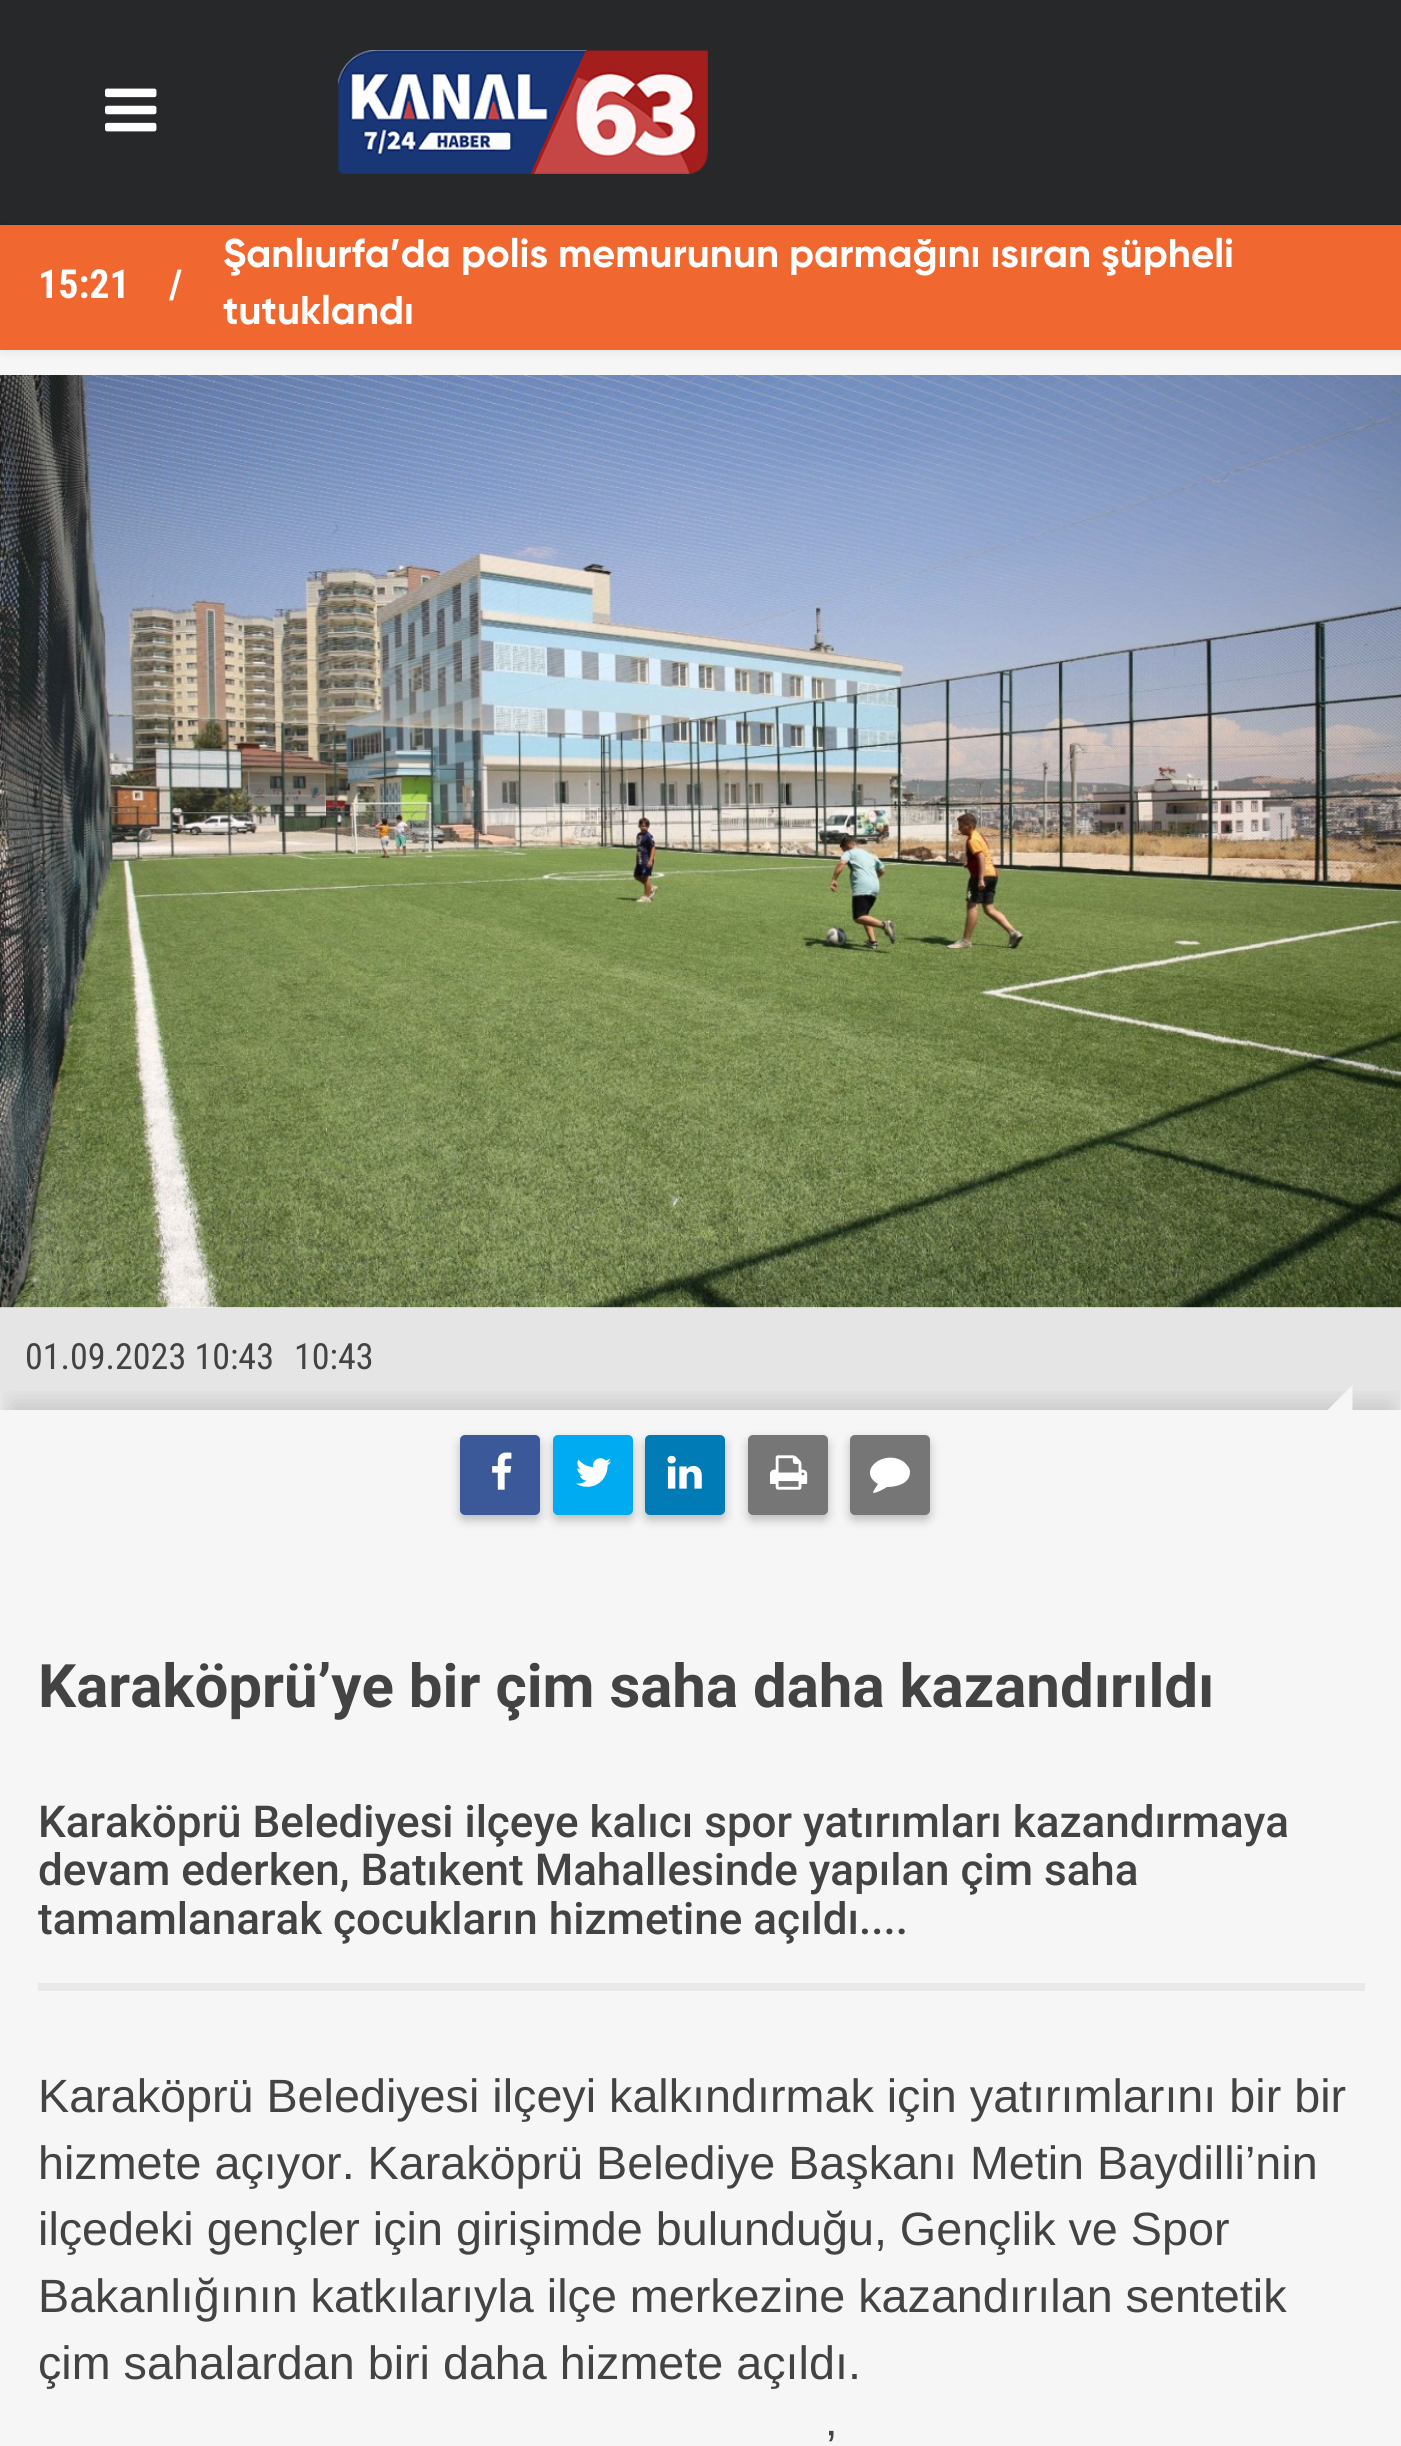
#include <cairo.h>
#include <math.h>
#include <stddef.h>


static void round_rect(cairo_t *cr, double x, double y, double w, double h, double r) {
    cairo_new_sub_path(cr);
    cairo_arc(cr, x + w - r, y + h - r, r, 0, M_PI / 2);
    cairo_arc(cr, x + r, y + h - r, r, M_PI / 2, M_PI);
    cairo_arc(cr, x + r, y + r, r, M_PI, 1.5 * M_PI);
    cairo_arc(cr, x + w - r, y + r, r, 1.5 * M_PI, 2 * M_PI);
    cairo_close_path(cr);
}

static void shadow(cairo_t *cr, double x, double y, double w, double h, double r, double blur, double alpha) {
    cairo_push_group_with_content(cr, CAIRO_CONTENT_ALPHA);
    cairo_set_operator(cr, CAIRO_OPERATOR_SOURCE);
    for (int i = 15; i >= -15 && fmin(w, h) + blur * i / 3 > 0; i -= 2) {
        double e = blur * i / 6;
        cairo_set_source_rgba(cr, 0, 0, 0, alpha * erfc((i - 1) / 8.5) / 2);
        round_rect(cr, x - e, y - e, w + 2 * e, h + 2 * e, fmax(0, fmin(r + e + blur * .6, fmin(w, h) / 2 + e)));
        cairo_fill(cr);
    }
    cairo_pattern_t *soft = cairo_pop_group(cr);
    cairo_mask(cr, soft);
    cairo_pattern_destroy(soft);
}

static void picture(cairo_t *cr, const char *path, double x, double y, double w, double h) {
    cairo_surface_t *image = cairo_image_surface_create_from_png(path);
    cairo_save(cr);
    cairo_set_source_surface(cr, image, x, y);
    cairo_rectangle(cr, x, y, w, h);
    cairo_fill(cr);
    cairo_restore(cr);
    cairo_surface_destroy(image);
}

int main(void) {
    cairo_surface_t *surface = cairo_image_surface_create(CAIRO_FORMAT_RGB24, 1401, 2446);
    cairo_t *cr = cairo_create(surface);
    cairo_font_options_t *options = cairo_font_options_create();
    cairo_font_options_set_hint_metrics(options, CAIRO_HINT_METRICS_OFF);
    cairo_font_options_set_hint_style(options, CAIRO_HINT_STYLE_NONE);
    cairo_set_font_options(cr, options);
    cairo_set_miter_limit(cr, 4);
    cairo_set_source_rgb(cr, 0.961, 0.961, 0.961);
    cairo_paint(cr);
    cairo_set_source_rgb(cr, 0.153, 0.157, 0.161);
    cairo_rectangle(cr, 0, 0, 1401, 225);
    cairo_fill(cr);
    picture(cr, "img1.png", 105, 88, 52, 44);
    picture(cr, "img2.png", 338, 50, 370, 124);
    cairo_set_source_rgb(cr, 0, 0, 0);
    shadow(cr, 3, 225, 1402, 125, 0, 6, 0.1);
    cairo_set_source_rgb(cr, 0.941, 0.404, 0.188);
    cairo_rectangle(cr, 0, 225, 1401, 125);
    cairo_fill(cr);
    cairo_select_font_face(cr, "Roboto Condensed", CAIRO_FONT_SLANT_NORMAL, CAIRO_FONT_WEIGHT_BOLD);
    cairo_set_font_size(cr, 40);
    cairo_set_source_rgb(cr, 1, 1, 1);
    cairo_move_to(cr, 38, 298);
    cairo_show_text(cr, "15:21");
    cairo_move_to(cr, 169, 298);
    cairo_show_text(cr, "/");
    cairo_select_font_face(cr, "Gilroy", CAIRO_FONT_SLANT_NORMAL, CAIRO_FONT_WEIGHT_BOLD);
    cairo_move_to(cr, 223, 267);
    cairo_show_text(cr, "Şanlıurfa’da polis memurunun parmağını ısıran şüpheli");
    cairo_move_to(cr, 223, 324);
    cairo_show_text(cr, "tutuklandı");
    picture(cr, "img3.png", 0, 375, 1401, 933);
    cairo_set_source_rgb(cr, 0.898, 0.898, 0.898);
    cairo_rectangle(cr, 0, 1308, 1401, 102);
    cairo_fill(cr);
    cairo_select_font_face(cr, "Roboto Condensed", CAIRO_FONT_SLANT_NORMAL, CAIRO_FONT_WEIGHT_NORMAL);
    cairo_set_font_size(cr, 36);
    cairo_set_source_rgb(cr, 0.263, 0.263, 0.263);
    cairo_move_to(cr, 25, 1369);
    cairo_show_text(cr, "01.09.2023 10:43");
    cairo_move_to(cr, 294, 1369);
    cairo_show_text(cr, "10:43");
    cairo_save(cr);
    cairo_rectangle(cr, 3, 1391, 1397, 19);
    cairo_clip(cr);
    cairo_set_source_rgb(cr, 0, 0, 0);
    shadow(cr, 13, 1405, 1377, 105, 0, 12.5, 0.15);
    cairo_restore(cr);
    cairo_set_source_rgb(cr, 0.961, 0.961, 0.961);
    cairo_new_path(cr);
    cairo_move_to(cr, 1352.5, 1410);
    cairo_line_to(cr, 1327.5, 1410);
    cairo_line_to(cr, 1352.5, 1385);
    cairo_close_path(cr);
    cairo_fill(cr);
    cairo_set_source_rgb(cr, 0.196, 0.196, 0.196);
    shadow(cr, 460, 1440, 80, 80, 5, 5, 0.3);
    cairo_set_source_rgb(cr, 0.231, 0.349, 0.596);
    round_rect(cr, 460, 1435, 80, 80, 5);
    cairo_fill(cr);
    picture(cr, "img4.png", 492, 1452, 20, 38);
    cairo_set_source_rgb(cr, 0.196, 0.196, 0.196);
    shadow(cr, 553, 1440, 80, 80, 5, 5, 0.3);
    cairo_set_source_rgb(cr, 0, 0.671, 0.945);
    round_rect(cr, 553, 1435, 80, 80, 5);
    cairo_fill(cr);
    picture(cr, "img5.png", 576, 1458, 35, 29);
    cairo_set_source_rgb(cr, 0.196, 0.196, 0.196);
    shadow(cr, 645, 1440, 80, 80, 5, 5, 0.3);
    cairo_set_source_rgb(cr, 0, 0.482, 0.714);
    round_rect(cr, 645, 1435, 80, 80, 5);
    cairo_fill(cr);
    picture(cr, "img6.png", 667, 1455, 35, 34);
    cairo_set_source_rgb(cr, 0.196, 0.196, 0.196);
    shadow(cr, 748, 1440, 80, 80, 5, 5, 0.3);
    cairo_set_source_rgb(cr, 0.463, 0.463, 0.463);
    round_rect(cr, 748, 1435, 80, 80, 5);
    cairo_fill(cr);
    picture(cr, "img7.png", 770, 1455, 38, 35);
    cairo_set_source_rgb(cr, 0.196, 0.196, 0.196);
    shadow(cr, 850, 1440, 80, 80, 5, 5, 0.3);
    cairo_set_source_rgb(cr, 0.463, 0.463, 0.463);
    round_rect(cr, 850, 1435, 80, 80, 5);
    cairo_fill(cr);
    cairo_set_source_rgb(cr, 1, 1, 1);
    cairo_new_path(cr);
    cairo_move_to(cr, 910, 1472);
    cairo_curve_to(cr, 910, 1484, 896, 1487, 887, 1487);
    cairo_curve_to(cr, 884, 1489, 873, 1495, 873, 1492);
    cairo_line_to(cr, 876, 1487);
    cairo_line_to(cr, 878, 1484);
    cairo_curve_to(cr, 856, 1471, 884, 1448, 904, 1462);
    cairo_curve_to(cr, 907, 1465, 910, 1468, 910, 1472);
    cairo_close_path(cr);
    cairo_fill(cr);
    cairo_set_source_rgb(cr, 0.914, 0.914, 0.914);
    cairo_rectangle(cr, 38, 1983, 1327, 8);
    cairo_fill(cr);
    cairo_select_font_face(cr, "Roboto", CAIRO_FONT_SLANT_NORMAL, CAIRO_FONT_WEIGHT_BOLD);
    cairo_set_font_size(cr, 60);
    cairo_set_source_rgb(cr, 0.263, 0.263, 0.263);
    cairo_move_to(cr, 38, 1707);
    cairo_show_text(cr, "Karaköprü’ye bir çim saha daha kazandırıldı");
    cairo_select_font_face(cr, "Roboto Medium", CAIRO_FONT_SLANT_NORMAL, CAIRO_FONT_WEIGHT_NORMAL);
    cairo_set_font_size(cr, 44);
    cairo_move_to(cr, 38, 1837);
    cairo_show_text(cr, "Karaköprü Belediyesi ilçeye kalıcı spor yatırımları kazandırmaya");
    cairo_move_to(cr, 38, 1885);
    cairo_show_text(cr, "devam ederken, Batıkent Mahallesinde yapılan çim saha");
    cairo_move_to(cr, 38, 1934);
    cairo_show_text(cr, "tamamlanarak çocukların hizmetine açıldı....");
    cairo_select_font_face(cr, "Liberation Sans", CAIRO_FONT_SLANT_NORMAL, CAIRO_FONT_WEIGHT_NORMAL);
    cairo_set_font_size(cr, 46.7);
    cairo_move_to(cr, 38, 2112);
    cairo_show_text(cr, "Karaköprü Belediyesi ilçeyi kalkındırmak için yatırımlarını bir bir");
    cairo_move_to(cr, 38, 2179);
    cairo_show_text(cr, "hizmete açıyor. Karaköprü Belediye Başkanı Metin Baydilli’nin");
    cairo_move_to(cr, 38, 2245);
    cairo_show_text(cr, "ilçedeki gençler için girişimde bulunduğu, Gençlik ve Spor");
    cairo_move_to(cr, 38, 2312);
    cairo_show_text(cr, "Bakanlığının katkılarıyla ilçe merkezine kazandırılan sentetik");
    cairo_move_to(cr, 38, 2379);
    cairo_show_text(cr, "çim sahalardan biri daha hizmete açıldı.");
    cairo_move_to(cr, 826, 2463);
    cairo_show_text(cr, "’");
    cairo_surface_write_to_png(surface, "page.png");
    cairo_font_options_destroy(options);
    cairo_destroy(cr);
    cairo_surface_destroy(surface);
    return 0;
}
